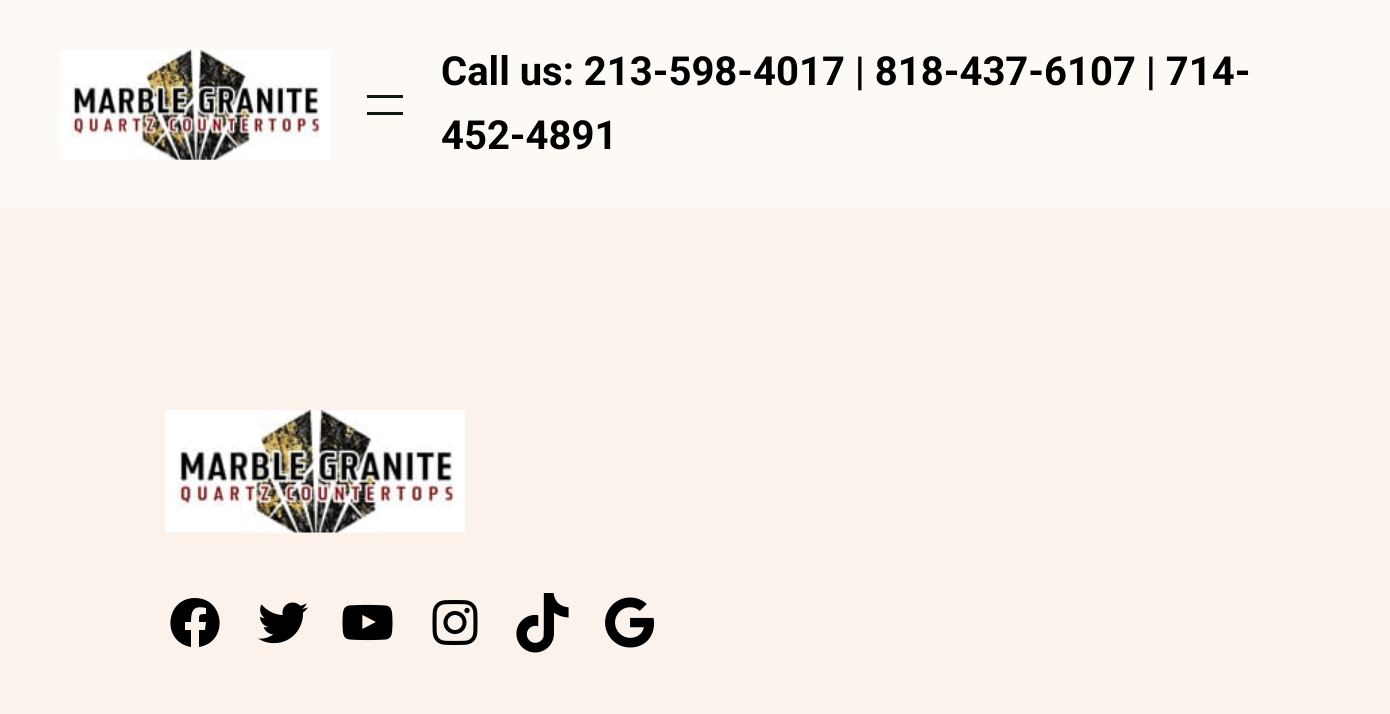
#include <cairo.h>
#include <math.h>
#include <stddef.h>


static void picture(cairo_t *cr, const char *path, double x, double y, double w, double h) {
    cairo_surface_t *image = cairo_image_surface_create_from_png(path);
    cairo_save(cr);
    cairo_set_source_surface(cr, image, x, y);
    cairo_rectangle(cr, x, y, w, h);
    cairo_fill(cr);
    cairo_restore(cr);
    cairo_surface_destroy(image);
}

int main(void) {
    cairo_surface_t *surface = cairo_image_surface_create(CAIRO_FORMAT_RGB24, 1390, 714);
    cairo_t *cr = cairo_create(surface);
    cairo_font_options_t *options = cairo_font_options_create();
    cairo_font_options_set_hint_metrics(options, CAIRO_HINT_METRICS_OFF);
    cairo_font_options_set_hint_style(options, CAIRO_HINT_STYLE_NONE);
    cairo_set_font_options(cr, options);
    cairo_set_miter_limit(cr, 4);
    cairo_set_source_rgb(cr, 0.992, 0.973, 0.957);
    cairo_paint(cr);
    picture(cr, "img1.png", 60, 49, 270, 111);
    cairo_set_source_rgb(cr, 0.047, 0.102, 0.075);
    cairo_rectangle(cr, 367, 95, 36, 3);
    cairo_fill(cr);
    cairo_rectangle(cr, 367, 112, 36, 3);
    cairo_fill(cr);
    cairo_select_font_face(cr, "Roboto", CAIRO_FONT_SLANT_NORMAL, CAIRO_FONT_WEIGHT_BOLD);
    cairo_set_font_size(cr, 40);
    cairo_set_source_rgb(cr, 0, 0, 0);
    cairo_move_to(cr, 441, 85);
    cairo_show_text(cr, "Call us: 213-598-4017 | 818-437-6107 | 714-");
    cairo_move_to(cr, 441, 149);
    cairo_show_text(cr, "452-4891");
    cairo_set_source_rgb(cr, 0.984, 0.949, 0.922);
    cairo_rectangle(cr, 0, 208, 1390, 506);
    cairo_fill(cr);
    picture(cr, "img2.png", 165, 410, 300, 123);
    cairo_set_source_rgb(cr, 0, 0, 0);
    cairo_new_path(cr);
    cairo_move_to(cr, 195, 598);
    cairo_curve_to(cr, 165, 598, 161, 642, 191, 647);
    cairo_line_to(cr, 191, 630);
    cairo_line_to(cr, 185, 630);
    cairo_line_to(cr, 185, 622);
    cairo_line_to(cr, 191, 622);
    cairo_curve_to(cr, 191, 611, 193, 605, 206, 608);
    cairo_line_to(cr, 206, 614);
    cairo_curve_to(cr, 198, 614, 199, 615, 199, 622);
    cairo_line_to(cr, 206, 622);
    cairo_line_to(cr, 205, 630);
    cairo_line_to(cr, 199, 630);
    cairo_line_to(cr, 199, 647);
    cairo_curve_to(cr, 229, 642, 225, 598, 195, 598);
    cairo_close_path(cr);
    cairo_fill(cr);
    picture(cr, "img3.png", 258, 602, 50, 42);
    picture(cr, "img4.png", 342, 604, 51, 37);
    picture(cr, "img5.png", 432, 600, 46, 45);
    picture(cr, "img6.png", 516, 593, 53, 60);
    picture(cr, "img7.png", 605, 597, 50, 51);
    cairo_surface_write_to_png(surface, "page.png");
    cairo_font_options_destroy(options);
    cairo_destroy(cr);
    cairo_surface_destroy(surface);
    return 0;
}
